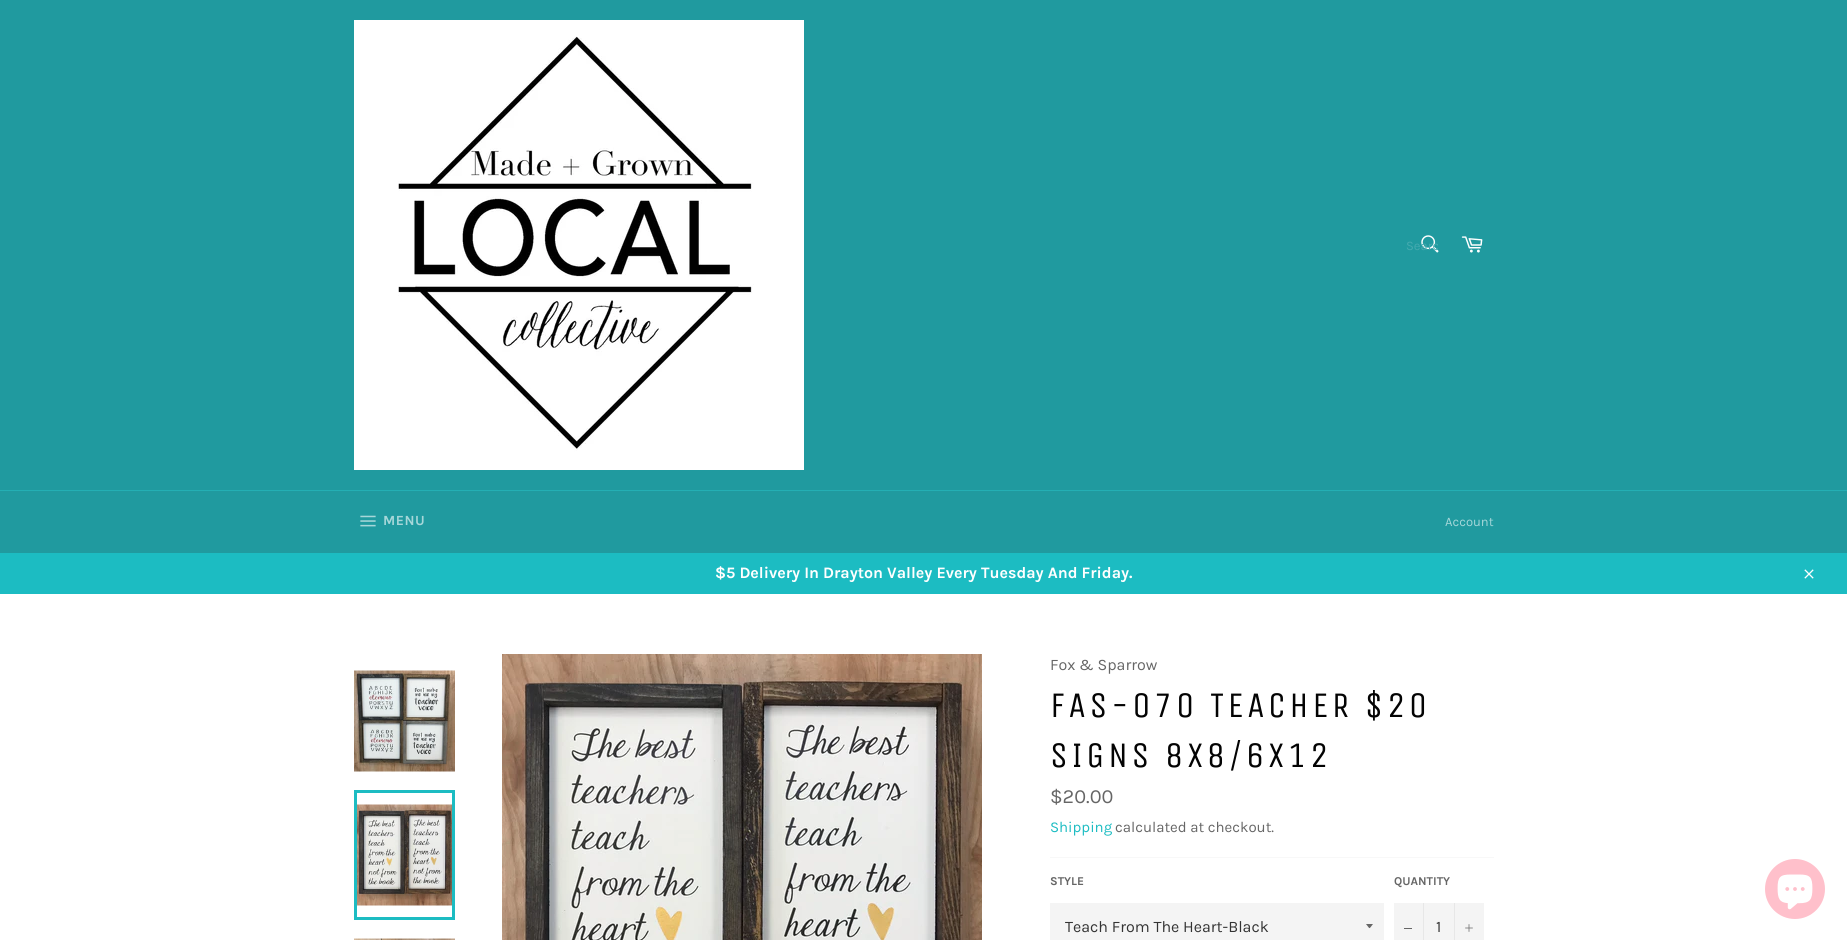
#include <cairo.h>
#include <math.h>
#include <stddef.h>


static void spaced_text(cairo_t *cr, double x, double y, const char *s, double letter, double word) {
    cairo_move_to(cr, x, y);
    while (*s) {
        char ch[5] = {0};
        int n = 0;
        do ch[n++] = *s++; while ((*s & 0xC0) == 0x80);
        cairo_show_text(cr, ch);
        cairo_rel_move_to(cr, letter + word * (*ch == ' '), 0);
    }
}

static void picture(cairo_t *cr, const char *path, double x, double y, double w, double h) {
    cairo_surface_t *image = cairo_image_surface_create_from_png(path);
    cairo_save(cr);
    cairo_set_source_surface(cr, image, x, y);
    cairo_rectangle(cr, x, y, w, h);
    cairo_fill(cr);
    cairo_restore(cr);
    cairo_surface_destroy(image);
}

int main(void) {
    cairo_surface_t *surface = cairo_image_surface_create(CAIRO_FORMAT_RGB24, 1847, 940);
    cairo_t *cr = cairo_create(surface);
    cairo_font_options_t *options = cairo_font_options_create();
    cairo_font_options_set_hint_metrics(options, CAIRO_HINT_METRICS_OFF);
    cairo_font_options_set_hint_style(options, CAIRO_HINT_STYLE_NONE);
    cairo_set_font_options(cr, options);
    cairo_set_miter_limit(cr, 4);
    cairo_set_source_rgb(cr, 0.125, 0.604, 0.624);
    cairo_paint(cr);
    picture(cr, "img1.png", 354, 20, 450, 450);
    picture(cr, "img2.png", 1421, 235, 18, 18);
    cairo_save(cr);
    cairo_rectangle(cr, 1406, 238, 32, 15);
    cairo_clip(cr);
    cairo_select_font_face(cr, "Karla", CAIRO_FONT_SLANT_NORMAL, CAIRO_FONT_WEIGHT_NORMAL);
    cairo_set_font_size(cr, 13);
    cairo_set_source_rgb(cr, 0.267, 0.667, 0.686);
    cairo_move_to(cr, 1406, 250);
    cairo_show_text(cr, "Searc");
    cairo_restore(cr);
    picture(cr, "img3.png", 1461, 236, 22, 17);
    cairo_set_source_rgb(cr, 0.141, 0.686, 0.706);
    cairo_rectangle(cr, 0, 490, 1847, 1);
    cairo_fill(cr);
    picture(cr, "img4.png", 360, 515, 16, 12);
    cairo_select_font_face(cr, "Karla", CAIRO_FONT_SLANT_NORMAL, CAIRO_FONT_WEIGHT_BOLD);
    cairo_set_font_size(cr, 14);
    cairo_set_source_rgb(cr, 0.651, 0.843, 0.851);
    spaced_text(cr, 383, 525, "MENU", 0.5, 0);
    cairo_select_font_face(cr, "Karla", CAIRO_FONT_SLANT_NORMAL, CAIRO_FONT_WEIGHT_NORMAL);
    cairo_set_font_size(cr, 13);
    cairo_move_to(cr, 1445, 526);
    cairo_show_text(cr, "Account");
    cairo_set_source_rgb(cr, 0.11, 0.737, 0.761);
    cairo_rectangle(cr, 0, 553, 1847, 41);
    cairo_fill(cr);
    cairo_select_font_face(cr, "Karla", CAIRO_FONT_SLANT_NORMAL, CAIRO_FONT_WEIGHT_BOLD);
    cairo_set_font_size(cr, 16);
    cairo_set_source_rgb(cr, 1, 1, 1);
    cairo_move_to(cr, 715, 578);
    cairo_show_text(cr, "$5 Delivery In Drayton Valley Every Tuesday And Friday.");
    picture(cr, "img5.png", 1804, 569, 10, 10);
    cairo_rectangle(cr, 0, 594, 1847, 346);
    cairo_fill(cr);
    picture(cr, "img6.png", 354, 670, 101, 102);
    picture(cr, "img7.png", 357, 804, 95, 102);
    cairo_rectangle(cr, 355.5, 791.5, 98, 127);
    cairo_set_source_rgb(cr, 0.11, 0.737, 0.761);
    cairo_set_line_width(cr, 3);
    cairo_stroke(cr);
    picture(cr, "img8.png", 354, 938, 101, 2);
    picture(cr, "img9.png", 502, 654, 480, 286);
    cairo_select_font_face(cr, "Karla", CAIRO_FONT_SLANT_NORMAL, CAIRO_FONT_WEIGHT_NORMAL);
    cairo_set_source_rgb(cr, 0.4, 0.4, 0.4);
    cairo_move_to(cr, 1050, 670);
    cairo_show_text(cr, "Fox & Sparrow");
    cairo_select_font_face(cr, "Unica One", CAIRO_FONT_SLANT_NORMAL, CAIRO_FONT_WEIGHT_NORMAL);
    cairo_set_font_size(cr, 36);
    cairo_set_source_rgb(cr, 0.012, 0.012, 0.012);
    spaced_text(cr, 1050, 717, "FAS-070 TEACHER $20", 3.6, 0);
    spaced_text(cr, 1050, 767, "SIGNS 8X8/6X12", 3.6, 0);
    cairo_select_font_face(cr, "Karla", CAIRO_FONT_SLANT_NORMAL, CAIRO_FONT_WEIGHT_NORMAL);
    cairo_set_font_size(cr, 20);
    cairo_set_source_rgb(cr, 0.4, 0.4, 0.4);
    cairo_move_to(cr, 1050, 803);
    cairo_show_text(cr, "$20.00");
    cairo_set_font_size(cr, 15);
    cairo_set_source_rgb(cr, 0.11, 0.737, 0.761);
    cairo_move_to(cr, 1050, 832);
    cairo_show_text(cr, "Shipping");
    cairo_set_source_rgb(cr, 0.4, 0.4, 0.4);
    cairo_move_to(cr, 1115, 832);
    cairo_show_text(cr, "calculated at checkout.");
    cairo_set_source_rgb(cr, 0.969, 0.969, 0.969);
    cairo_rectangle(cr, 1050, 857, 444, 1);
    cairo_fill(cr);
    cairo_select_font_face(cr, "Karla", CAIRO_FONT_SLANT_NORMAL, CAIRO_FONT_WEIGHT_BOLD);
    cairo_set_font_size(cr, 12);
    cairo_set_source_rgb(cr, 0.4, 0.4, 0.4);
    cairo_move_to(cr, 1050, 885);
    cairo_show_text(cr, "STYLE");
    cairo_set_source_rgb(cr, 0.957, 0.957, 0.957);
    cairo_rectangle(cr, 1050, 903, 334, 37);
    cairo_fill(cr);
    cairo_set_source_rgb(cr, 0.4, 0.4, 0.4);
    cairo_new_path(cr);
    cairo_move_to(cr, 1366, 924);
    cairo_curve_to(cr, 1370.5, 929.5, 1368.5, 929.5, 1373, 924);
    cairo_close_path(cr);
    cairo_fill(cr);
    cairo_select_font_face(cr, "Karla", CAIRO_FONT_SLANT_NORMAL, CAIRO_FONT_WEIGHT_NORMAL);
    cairo_set_font_size(cr, 16);
    cairo_set_source_rgb(cr, 0.2, 0.2, 0.2);
    cairo_move_to(cr, 1065, 932);
    cairo_show_text(cr, "Teach From The Heart-Black");
    cairo_select_font_face(cr, "Karla", CAIRO_FONT_SLANT_NORMAL, CAIRO_FONT_WEIGHT_BOLD);
    cairo_set_font_size(cr, 12);
    cairo_set_source_rgb(cr, 0.4, 0.4, 0.4);
    cairo_move_to(cr, 1394, 885);
    cairo_show_text(cr, "QUANTITY");
    cairo_set_source_rgb(cr, 0.957, 0.957, 0.957);
    cairo_rectangle(cr, 1394, 903, 90, 37);
    cairo_fill(cr);
    cairo_set_source_rgb(cr, 0.906, 0.906, 0.906);
    cairo_rectangle(cr, 1423, 903, 1, 37);
    cairo_fill(cr);
    cairo_set_source_rgb(cr, 0.4, 0.4, 0.4);
    cairo_rectangle(cr, 1404, 928, 8, 1);
    cairo_fill(cr);
    cairo_select_font_face(cr, "Karla", CAIRO_FONT_SLANT_NORMAL, CAIRO_FONT_WEIGHT_NORMAL);
    cairo_set_font_size(cr, 16);
    cairo_set_source_rgb(cr, 0.2, 0.2, 0.2);
    cairo_move_to(cr, 1436, 932);
    cairo_show_text(cr, "1");
    cairo_set_source_rgb(cr, 0.906, 0.906, 0.906);
    cairo_rectangle(cr, 1454, 903, 1, 37);
    cairo_fill(cr);
    picture(cr, "img10.png", 1465, 924, 8, 8);
    cairo_set_source_rgb(cr, 1, 0.753, 0.796);
    cairo_arc(cr, 1795, 889, 30, 0, 2 * M_PI);
    cairo_fill(cr);
    picture(cr, "img11.png", 1777, 874, 36, 36);
    cairo_surface_write_to_png(surface, "page.png");
    cairo_font_options_destroy(options);
    cairo_destroy(cr);
    cairo_surface_destroy(surface);
    return 0;
}
